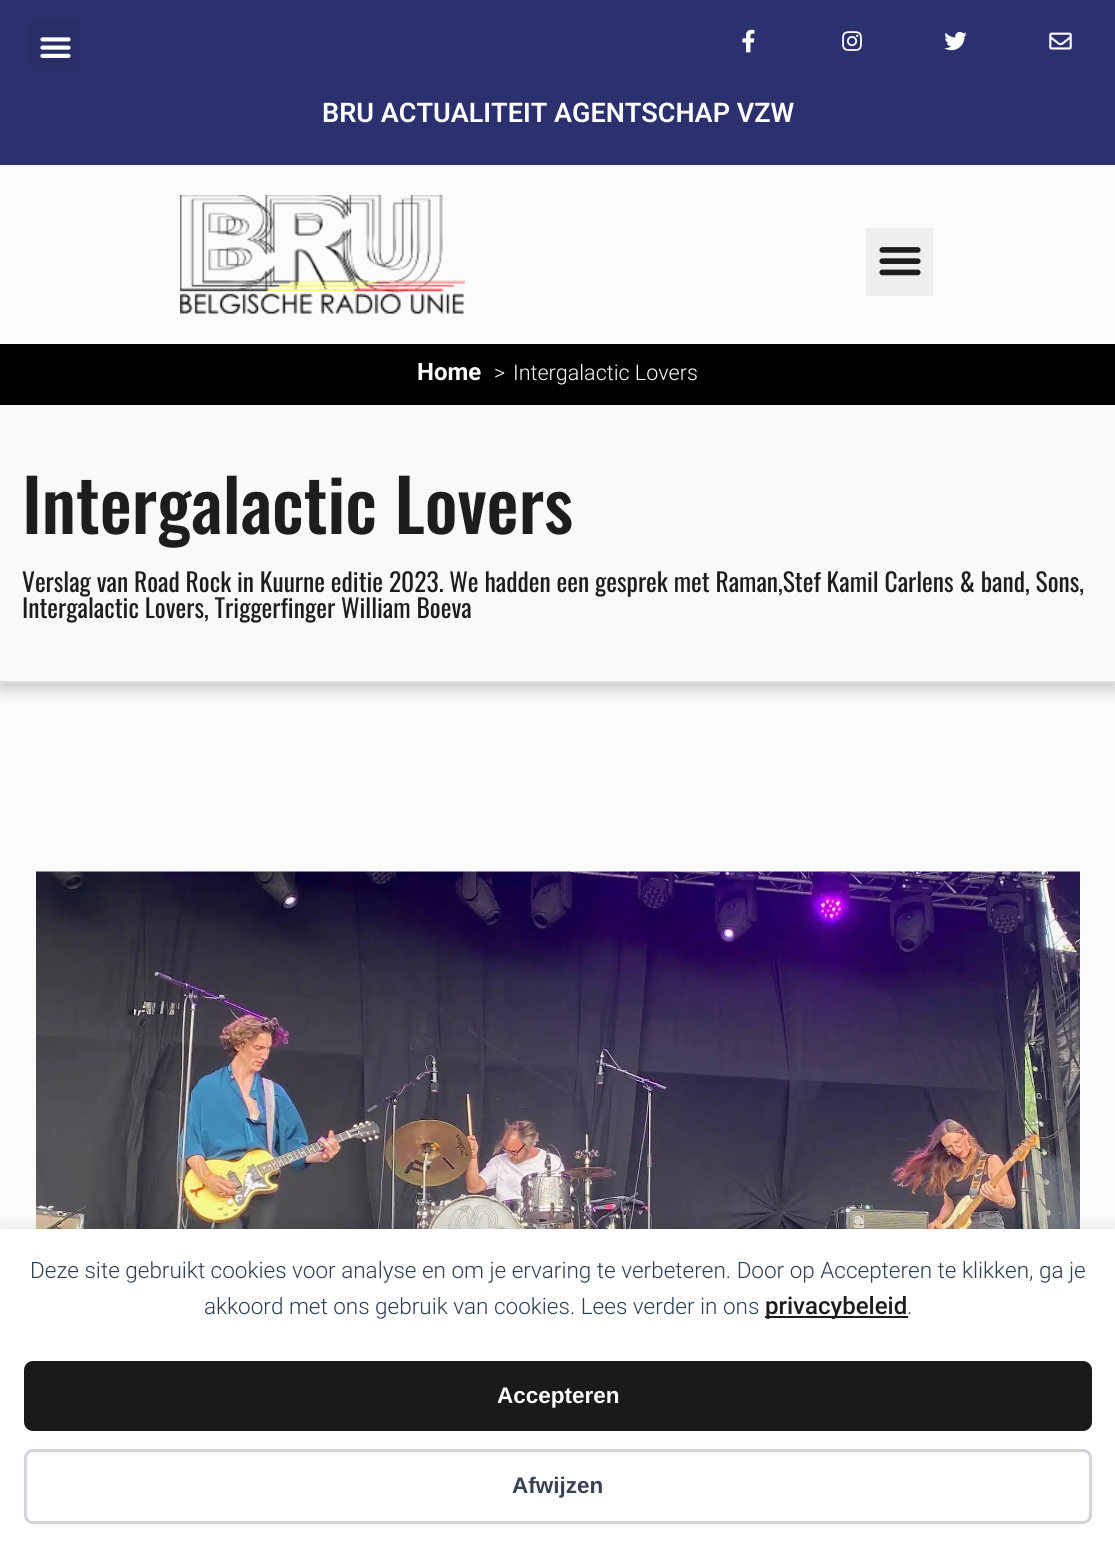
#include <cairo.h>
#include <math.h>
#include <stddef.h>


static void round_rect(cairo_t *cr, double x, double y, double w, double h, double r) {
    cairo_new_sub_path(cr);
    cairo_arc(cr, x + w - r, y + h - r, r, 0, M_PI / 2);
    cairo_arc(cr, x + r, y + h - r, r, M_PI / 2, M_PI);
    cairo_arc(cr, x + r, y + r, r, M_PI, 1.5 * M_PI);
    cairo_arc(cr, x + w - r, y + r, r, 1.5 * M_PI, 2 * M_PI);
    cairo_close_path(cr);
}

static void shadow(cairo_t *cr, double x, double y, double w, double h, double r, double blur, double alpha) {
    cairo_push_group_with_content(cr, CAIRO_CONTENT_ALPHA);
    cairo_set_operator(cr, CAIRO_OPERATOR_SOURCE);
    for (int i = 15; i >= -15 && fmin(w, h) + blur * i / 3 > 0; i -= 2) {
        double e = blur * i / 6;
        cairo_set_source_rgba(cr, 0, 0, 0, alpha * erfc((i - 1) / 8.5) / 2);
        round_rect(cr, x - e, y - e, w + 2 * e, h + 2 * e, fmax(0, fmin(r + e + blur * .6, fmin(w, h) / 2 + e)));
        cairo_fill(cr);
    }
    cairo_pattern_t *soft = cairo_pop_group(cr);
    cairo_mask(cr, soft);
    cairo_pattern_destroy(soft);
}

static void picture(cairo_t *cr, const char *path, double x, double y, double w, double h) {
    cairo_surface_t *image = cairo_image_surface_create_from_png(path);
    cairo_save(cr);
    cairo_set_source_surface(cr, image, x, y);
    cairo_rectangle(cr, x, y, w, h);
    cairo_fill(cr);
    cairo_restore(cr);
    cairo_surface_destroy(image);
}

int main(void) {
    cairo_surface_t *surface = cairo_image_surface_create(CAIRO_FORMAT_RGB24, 1115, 1547);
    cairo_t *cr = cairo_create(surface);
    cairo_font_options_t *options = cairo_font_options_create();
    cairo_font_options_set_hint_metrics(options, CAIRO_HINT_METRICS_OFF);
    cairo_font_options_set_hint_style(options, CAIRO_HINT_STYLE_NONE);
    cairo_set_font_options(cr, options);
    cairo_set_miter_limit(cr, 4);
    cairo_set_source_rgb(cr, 0.984, 0.984, 0.984);
    cairo_paint(cr);
    cairo_set_source_rgb(cr, 0.169, 0.188, 0.435);
    cairo_rectangle(cr, 0, 0, 1115, 165);
    cairo_fill(cr);
    cairo_set_source_rgb(cr, 0.161, 0.18, 0.412);
    round_rect(cr, 30, 21, 50, 50, 5);
    cairo_fill(cr);
    picture(cr, "img1.png", 40, 37, 31, 21);
    picture(cr, "img2.png", 742, 29, 13, 24);
    picture(cr, "img3.png", 842, 31, 20, 20);
    picture(cr, "img4.png", 944, 31, 23, 20);
    picture(cr, "img5.png", 1049, 32, 23, 18);
    cairo_select_font_face(cr, "Roboto SemiBold", CAIRO_FONT_SLANT_NORMAL, CAIRO_FONT_WEIGHT_NORMAL);
    cairo_set_font_size(cr, 27);
    cairo_set_source_rgb(cr, 1, 1, 1);
    cairo_move_to(cr, 322, 122);
    cairo_show_text(cr, "BRU ACTUALITEIT AGENTSCHAP VZW");
    picture(cr, "img6.png", 180, 195, 285, 119);
    cairo_set_source_rgb(cr, 0.933, 0.933, 0.933);
    cairo_rectangle(cr, 866, 228, 67, 68);
    cairo_fill(cr);
    picture(cr, "img7.png", 879, 247, 42, 29);
    cairo_set_source_rgb(cr, 0, 0, 0);
    cairo_rectangle(cr, 0, 344, 1115, 61);
    cairo_fill(cr);
    cairo_select_font_face(cr, "Roboto", CAIRO_FONT_SLANT_NORMAL, CAIRO_FONT_WEIGHT_BOLD);
    cairo_set_font_size(cr, 24);
    cairo_set_source_rgb(cr, 1, 1, 1);
    cairo_move_to(cr, 417, 380);
    cairo_show_text(cr, "Home");
    cairo_select_font_face(cr, "Roboto Light", CAIRO_FONT_SLANT_NORMAL, CAIRO_FONT_WEIGHT_NORMAL);
    cairo_set_font_size(cr, 21.5);
    cairo_move_to(cr, 494, 380);
    cairo_show_text(cr, ">");
    cairo_move_to(cr, 513, 380);
    cairo_show_text(cr, "Intergalactic Lovers");
    cairo_set_source_rgb(cr, 0, 0, 0);
    shadow(cr, 0, 413, 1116, 277, 0, 7.5, 0.2);
    cairo_set_source_rgb(cr, 0.973, 0.973, 0.973);
    cairo_rectangle(cr, 0, 405, 1115, 276);
    cairo_fill(cr);
    cairo_set_source_rgb(cr, 0.878, 0.878, 0.878);
    cairo_rectangle(cr, 0, 681, 1115, 2);
    cairo_fill(cr);
    cairo_select_font_face(cr, "Oswald Medium", CAIRO_FONT_SLANT_NORMAL, CAIRO_FONT_WEIGHT_NORMAL);
    cairo_set_font_size(cr, 72);
    cairo_set_source_rgb(cr, 0.114, 0.114, 0.114);
    cairo_move_to(cr, 22, 534);
    cairo_show_text(cr, "Intergalactic Lovers");
    cairo_select_font_face(cr, "Oswald", CAIRO_FONT_SLANT_NORMAL, CAIRO_FONT_WEIGHT_NORMAL);
    cairo_set_font_size(cr, 25.5);
    cairo_move_to(cr, 22, 592);
    cairo_show_text(cr, "Verslag van Road Rock in Kuurne editie 2023. We hadden een gesprek met Raman,Stef Kamil Carlens & band, Sons,");
    cairo_move_to(cr, 22, 618);
    cairo_show_text(cr, "Intergalactic Lovers, Triggerfinger William Boeva");
    picture(cr, "img8.png", 36, 871, 1044, 358);
    cairo_set_source_rgb(cr, 0, 0, 0);
    shadow(cr, 0, 1226, 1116, 319, 0, 7.5, 0.08);
    cairo_set_source_rgb(cr, 1, 1, 1);
    cairo_rectangle(cr, 0, 1229, 1115, 318);
    cairo_fill(cr);
    cairo_select_font_face(cr, "Roboto Light", CAIRO_FONT_SLANT_NORMAL, CAIRO_FONT_WEIGHT_NORMAL);
    cairo_set_font_size(cr, 22.5);
    cairo_set_source_rgb(cr, 0.173, 0.243, 0.314);
    cairo_move_to(cr, 30, 1278);
    cairo_show_text(cr, "Deze site gebruikt cookies voor analyse en om je ervaring te verbeteren. Door op Accepteren te klikken, ga je");
    cairo_move_to(cr, 204, 1314);
    cairo_show_text(cr, "akkoord met ons gebruik van cookies. Lees verder in ons");
    cairo_set_source_rgb(cr, 0.102, 0.102, 0.102);
    cairo_rectangle(cr, 765, 1316, 143, 2);
    cairo_fill(cr);
    cairo_select_font_face(cr, "Roboto Medium", CAIRO_FONT_SLANT_NORMAL, CAIRO_FONT_WEIGHT_NORMAL);
    cairo_set_font_size(cr, 24);
    cairo_set_source_rgb(cr, 0.114, 0.114, 0.114);
    cairo_move_to(cr, 765, 1314);
    cairo_show_text(cr, "privacybeleid");
    cairo_select_font_face(cr, "Roboto Light", CAIRO_FONT_SLANT_NORMAL, CAIRO_FONT_WEIGHT_NORMAL);
    cairo_set_font_size(cr, 22.5);
    cairo_set_source_rgb(cr, 0.173, 0.243, 0.314);
    cairo_move_to(cr, 907, 1314);
    cairo_show_text(cr, ".");
    cairo_set_source_rgb(cr, 0.102, 0.102, 0.102);
    round_rect(cr, 24, 1361, 1068, 70, 9);
    cairo_fill(cr);
    cairo_select_font_face(cr, "Liberation Sans", CAIRO_FONT_SLANT_NORMAL, CAIRO_FONT_WEIGHT_BOLD);
    cairo_set_source_rgb(cr, 1, 1, 1);
    cairo_move_to(cr, 497, 1403);
    cairo_show_text(cr, "Accepteren");
    round_rect(cr, 25.5, 1450.5, 1065, 72, 7.5);
    cairo_set_source_rgb(cr, 0.82, 0.835, 0.859);
    cairo_set_line_width(cr, 3);
    cairo_stroke(cr);
    cairo_set_source_rgb(cr, 0.216, 0.255, 0.318);
    cairo_move_to(cr, 512, 1493);
    cairo_show_text(cr, "Afwijzen");
    cairo_surface_write_to_png(surface, "page.png");
    cairo_font_options_destroy(options);
    cairo_destroy(cr);
    cairo_surface_destroy(surface);
    return 0;
}
